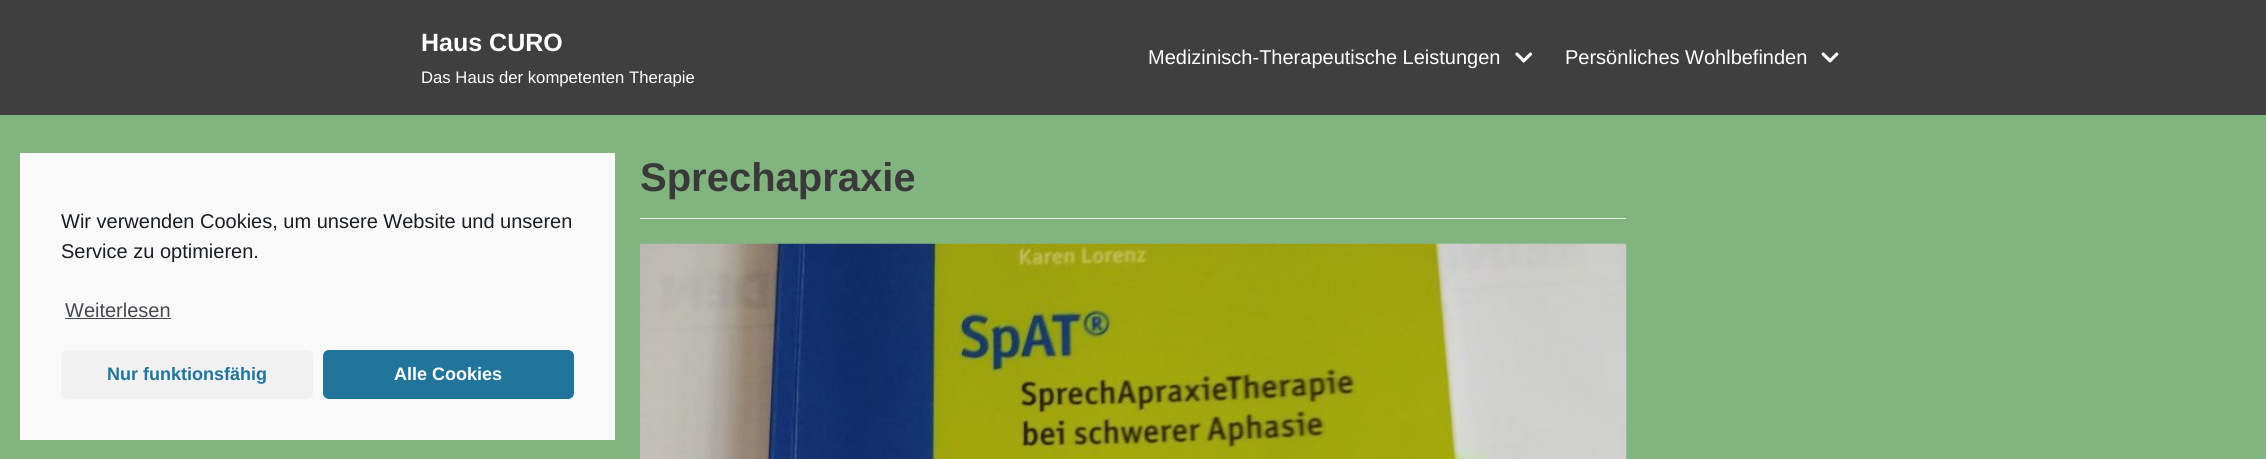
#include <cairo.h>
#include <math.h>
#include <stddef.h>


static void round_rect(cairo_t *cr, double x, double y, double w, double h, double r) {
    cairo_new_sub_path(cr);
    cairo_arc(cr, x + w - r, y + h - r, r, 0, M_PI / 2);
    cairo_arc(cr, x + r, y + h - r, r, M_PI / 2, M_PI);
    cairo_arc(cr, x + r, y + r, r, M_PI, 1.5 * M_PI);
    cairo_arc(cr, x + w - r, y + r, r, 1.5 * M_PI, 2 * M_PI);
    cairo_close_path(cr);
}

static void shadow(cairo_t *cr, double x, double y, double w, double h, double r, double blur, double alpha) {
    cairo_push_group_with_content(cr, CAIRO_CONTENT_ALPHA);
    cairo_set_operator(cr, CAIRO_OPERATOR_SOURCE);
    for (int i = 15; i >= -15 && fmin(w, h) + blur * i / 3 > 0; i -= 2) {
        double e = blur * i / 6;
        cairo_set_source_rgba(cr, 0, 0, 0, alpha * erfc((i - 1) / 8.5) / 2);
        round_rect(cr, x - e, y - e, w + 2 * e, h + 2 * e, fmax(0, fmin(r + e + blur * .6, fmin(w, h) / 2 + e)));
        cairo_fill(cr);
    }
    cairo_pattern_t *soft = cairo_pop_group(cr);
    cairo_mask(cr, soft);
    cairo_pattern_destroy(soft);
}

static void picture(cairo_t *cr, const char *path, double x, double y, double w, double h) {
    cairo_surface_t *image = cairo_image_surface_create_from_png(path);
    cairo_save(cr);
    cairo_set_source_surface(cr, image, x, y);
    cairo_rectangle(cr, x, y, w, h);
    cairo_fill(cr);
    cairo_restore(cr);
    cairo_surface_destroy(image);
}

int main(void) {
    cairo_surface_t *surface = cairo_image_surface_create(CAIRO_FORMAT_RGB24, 2266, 459);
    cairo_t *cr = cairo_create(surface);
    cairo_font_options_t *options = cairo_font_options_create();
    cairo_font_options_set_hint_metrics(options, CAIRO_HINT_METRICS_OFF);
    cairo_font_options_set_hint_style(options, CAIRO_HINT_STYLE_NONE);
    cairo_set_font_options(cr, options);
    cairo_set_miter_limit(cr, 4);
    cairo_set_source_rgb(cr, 0.51, 0.706, 0.502);
    cairo_paint(cr);
    cairo_set_source_rgb(cr, 0, 0, 0);
    shadow(cr, 0, -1, 2266, 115, 0, 2, 0.1);
    cairo_set_source_rgb(cr, 0.251, 0.247, 0.247);
    cairo_rectangle(cr, 0, 0, 2266, 115);
    cairo_fill(cr);
    cairo_select_font_face(cr, "Liberation Sans", CAIRO_FONT_SLANT_NORMAL, CAIRO_FONT_WEIGHT_BOLD);
    cairo_set_font_size(cr, 25);
    cairo_set_source_rgb(cr, 1, 1, 1);
    cairo_move_to(cr, 421, 51);
    cairo_show_text(cr, "Haus CURO");
    cairo_select_font_face(cr, "Liberation Sans", CAIRO_FONT_SLANT_NORMAL, CAIRO_FONT_WEIGHT_NORMAL);
    cairo_set_font_size(cr, 16.7);
    cairo_move_to(cr, 421, 83);
    cairo_show_text(cr, "Das Haus der kompetenten Therapie");
    cairo_set_font_size(cr, 20);
    cairo_move_to(cr, 1148, 64);
    cairo_show_text(cr, "Medizinisch-Therapeutische Leistungen");
    picture(cr, "img1.png", 1515, 52, 18, 11);
    cairo_move_to(cr, 1565, 64);
    cairo_show_text(cr, "Persönliches Wohlbefinden");
    picture(cr, "img2.png", 1821, 52, 18, 11);
    cairo_set_source_rgb(cr, 0.929, 0.929, 0.929);
    cairo_rectangle(cr, 640, 218, 986, 1);
    cairo_fill(cr);
    cairo_select_font_face(cr, "Liberation Sans", CAIRO_FONT_SLANT_NORMAL, CAIRO_FONT_WEIGHT_BOLD);
    cairo_set_font_size(cr, 40);
    cairo_set_source_rgb(cr, 0.224, 0.224, 0.224);
    cairo_move_to(cr, 640, 191);
    cairo_show_text(cr, "Sprechapraxie");
    picture(cr, "img3.png", 640, 243, 987, 216);
    cairo_set_source_rgb(cr, 0.976, 0.976, 0.976);
    cairo_rectangle(cr, 20, 153, 595, 287);
    cairo_fill(cr);
    cairo_select_font_face(cr, "Liberation Sans", CAIRO_FONT_SLANT_NORMAL, CAIRO_FONT_WEIGHT_NORMAL);
    cairo_set_font_size(cr, 20);
    cairo_set_source_rgb(cr, 0.098, 0.118, 0.137);
    cairo_move_to(cr, 61, 228);
    cairo_show_text(cr, "Wir verwenden Cookies, um unsere Website und unseren");
    cairo_move_to(cr, 61, 258);
    cairo_show_text(cr, "Service zu optimieren.");
    cairo_set_source_rgb(cr, 0.275, 0.29, 0.306);
    cairo_move_to(cr, 65, 317);
    cairo_show_text(cr, "Weiterlesen");
    cairo_rectangle(cr, 65, 318, 106, 1);
    cairo_fill(cr);
    cairo_set_source_rgb(cr, 0.945, 0.945, 0.945);
    round_rect(cr, 61, 350, 252, 49, 6);
    cairo_fill(cr);
    cairo_select_font_face(cr, "Liberation Sans", CAIRO_FONT_SLANT_NORMAL, CAIRO_FONT_WEIGHT_BOLD);
    cairo_set_font_size(cr, 18);
    cairo_set_source_rgb(cr, 0.129, 0.459, 0.608);
    cairo_move_to(cr, 107, 380);
    cairo_show_text(cr, "Nur funktionsfähig");
    round_rect(cr, 324.5, 351.5, 248, 46, 4.5);
    cairo_fill_preserve(cr);
    cairo_set_line_width(cr, 3);
    cairo_stroke(cr);
    cairo_set_source_rgb(cr, 1, 1, 1);
    cairo_move_to(cr, 394, 380);
    cairo_show_text(cr, "Alle Cookies");
    cairo_surface_write_to_png(surface, "page.png");
    cairo_font_options_destroy(options);
    cairo_destroy(cr);
    cairo_surface_destroy(surface);
    return 0;
}
